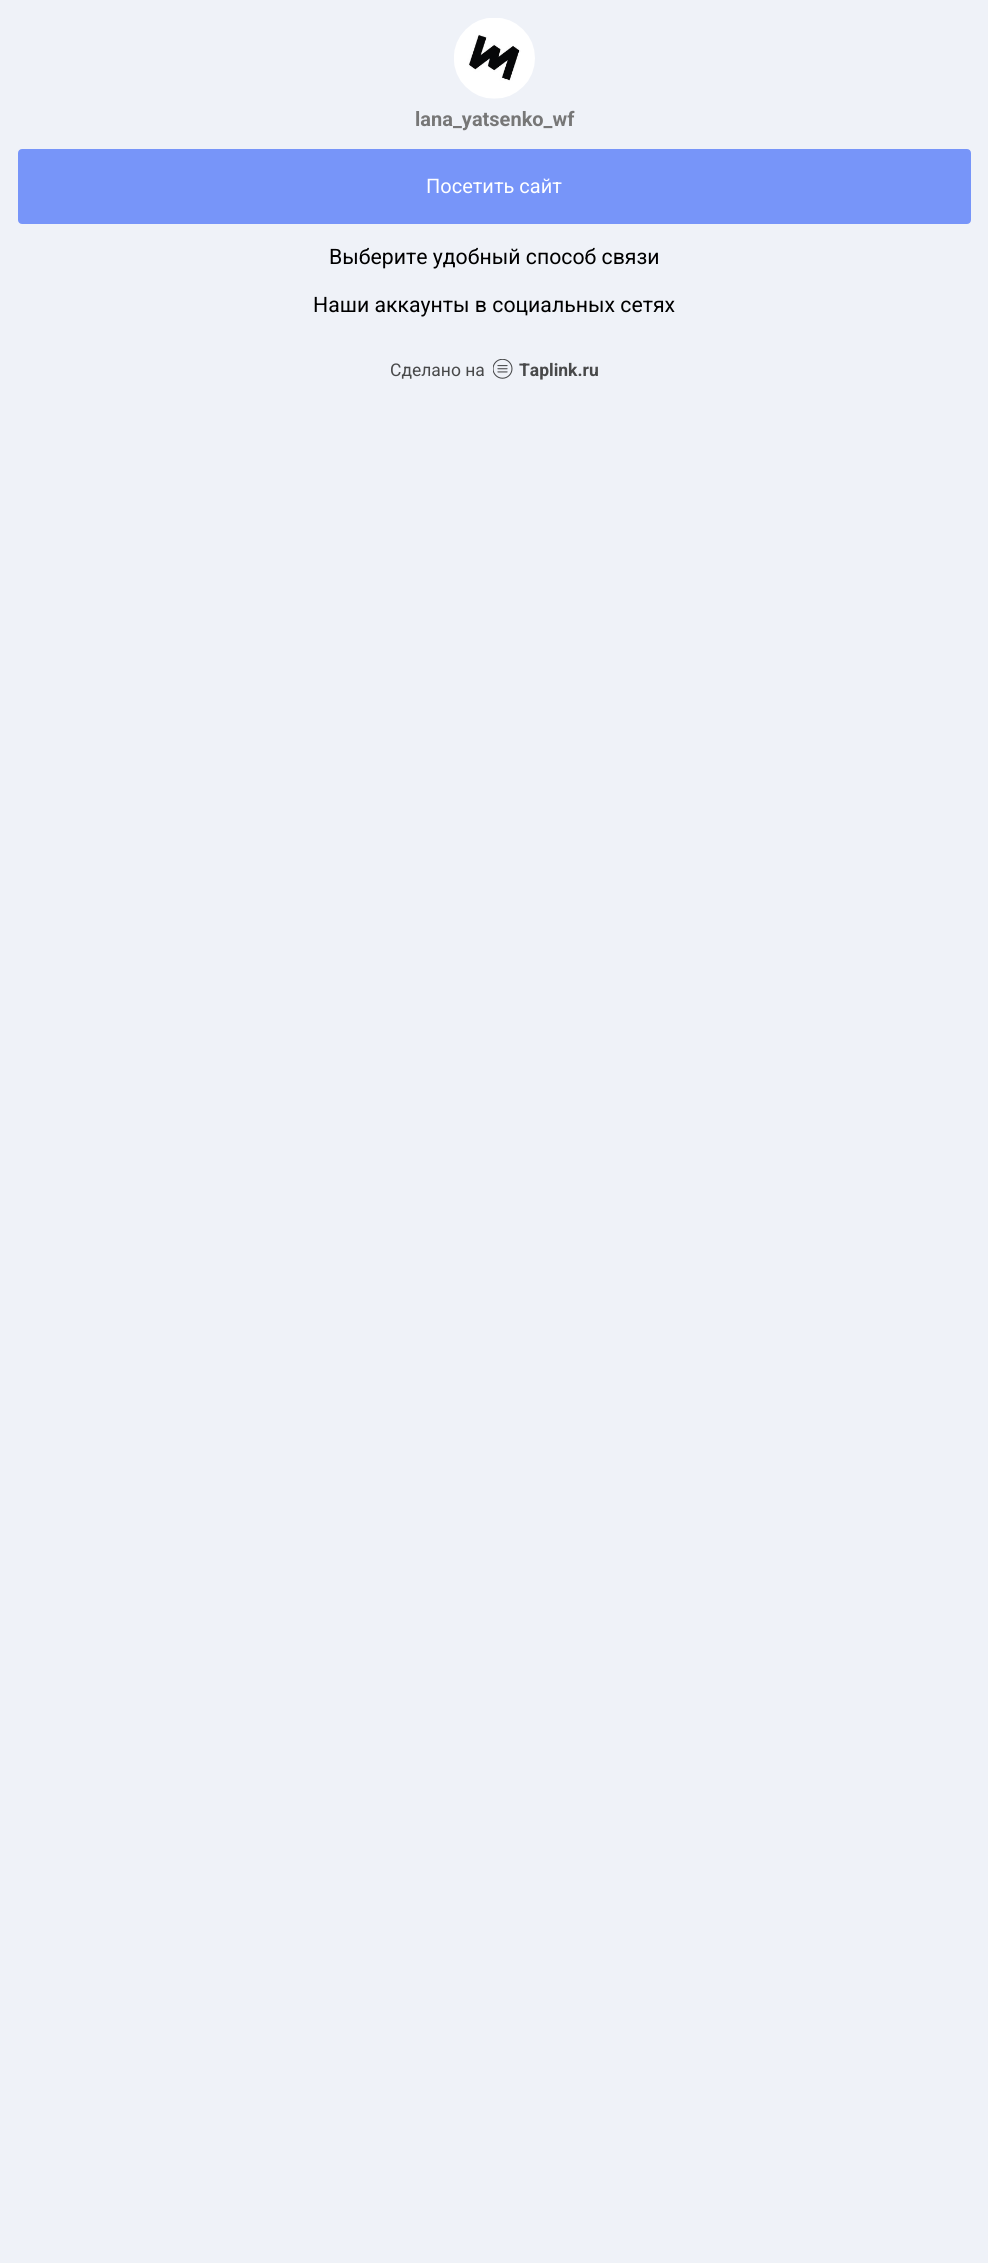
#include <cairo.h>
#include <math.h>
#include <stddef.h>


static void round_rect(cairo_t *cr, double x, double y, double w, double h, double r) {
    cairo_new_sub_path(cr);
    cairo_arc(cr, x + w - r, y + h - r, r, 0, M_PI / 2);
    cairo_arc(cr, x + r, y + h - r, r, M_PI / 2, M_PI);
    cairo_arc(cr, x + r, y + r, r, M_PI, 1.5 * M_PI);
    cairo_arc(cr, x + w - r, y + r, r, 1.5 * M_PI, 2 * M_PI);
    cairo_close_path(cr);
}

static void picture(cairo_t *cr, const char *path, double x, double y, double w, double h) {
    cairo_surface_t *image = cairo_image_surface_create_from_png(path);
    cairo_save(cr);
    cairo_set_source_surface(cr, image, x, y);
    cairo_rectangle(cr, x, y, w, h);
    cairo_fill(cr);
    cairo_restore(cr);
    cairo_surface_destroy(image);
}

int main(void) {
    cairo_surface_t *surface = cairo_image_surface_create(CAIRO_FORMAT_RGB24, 988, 2263);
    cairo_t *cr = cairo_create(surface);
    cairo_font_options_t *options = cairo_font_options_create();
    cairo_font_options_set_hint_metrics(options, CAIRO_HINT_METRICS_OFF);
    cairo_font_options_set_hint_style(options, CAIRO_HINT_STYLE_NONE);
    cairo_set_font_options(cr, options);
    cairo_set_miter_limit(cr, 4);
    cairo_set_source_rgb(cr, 0.937, 0.949, 0.969);
    cairo_paint(cr);
    picture(cr, "img1.png", 454, 18, 81, 81);
    cairo_select_font_face(cr, "Roboto", CAIRO_FONT_SLANT_NORMAL, CAIRO_FONT_WEIGHT_BOLD);
    cairo_set_font_size(cr, 20);
    cairo_set_source_rgb(cr, 0.467, 0.467, 0.467);
    cairo_move_to(cr, 415, 126);
    cairo_show_text(cr, "lana_yatsenko_wf");
    cairo_set_source_rgb(cr, 0.467, 0.584, 0.973);
    round_rect(cr, 19.5, 150.5, 950, 72, 2.5);
    cairo_fill_preserve(cr);
    cairo_set_line_width(cr, 3);
    cairo_stroke(cr);
    cairo_select_font_face(cr, "Roboto", CAIRO_FONT_SLANT_NORMAL, CAIRO_FONT_WEIGHT_NORMAL);
    cairo_set_source_rgb(cr, 1, 1, 1);
    cairo_move_to(cr, 426, 193);
    cairo_show_text(cr, "Посетить сайт");
    cairo_set_font_size(cr, 21.25);
    cairo_set_source_rgb(cr, 0, 0, 0);
    cairo_move_to(cr, 329, 264);
    cairo_show_text(cr, "Выберите удобный способ связи");
    cairo_move_to(cr, 313, 312);
    cairo_show_text(cr, "Наши аккаунты в социальных сетях");
    cairo_set_font_size(cr, 17.5);
    cairo_set_source_rgb(cr, 0.282, 0.286, 0.29);
    cairo_move_to(cr, 390, 376);
    cairo_show_text(cr, "Сделано на");
    picture(cr, "img2.png", 493, 359, 20, 20);
    cairo_select_font_face(cr, "Roboto", CAIRO_FONT_SLANT_NORMAL, CAIRO_FONT_WEIGHT_BOLD);
    cairo_move_to(cr, 519, 376);
    cairo_show_text(cr, "Taplink.ru");
    cairo_surface_write_to_png(surface, "page.png");
    cairo_font_options_destroy(options);
    cairo_destroy(cr);
    cairo_surface_destroy(surface);
    return 0;
}
